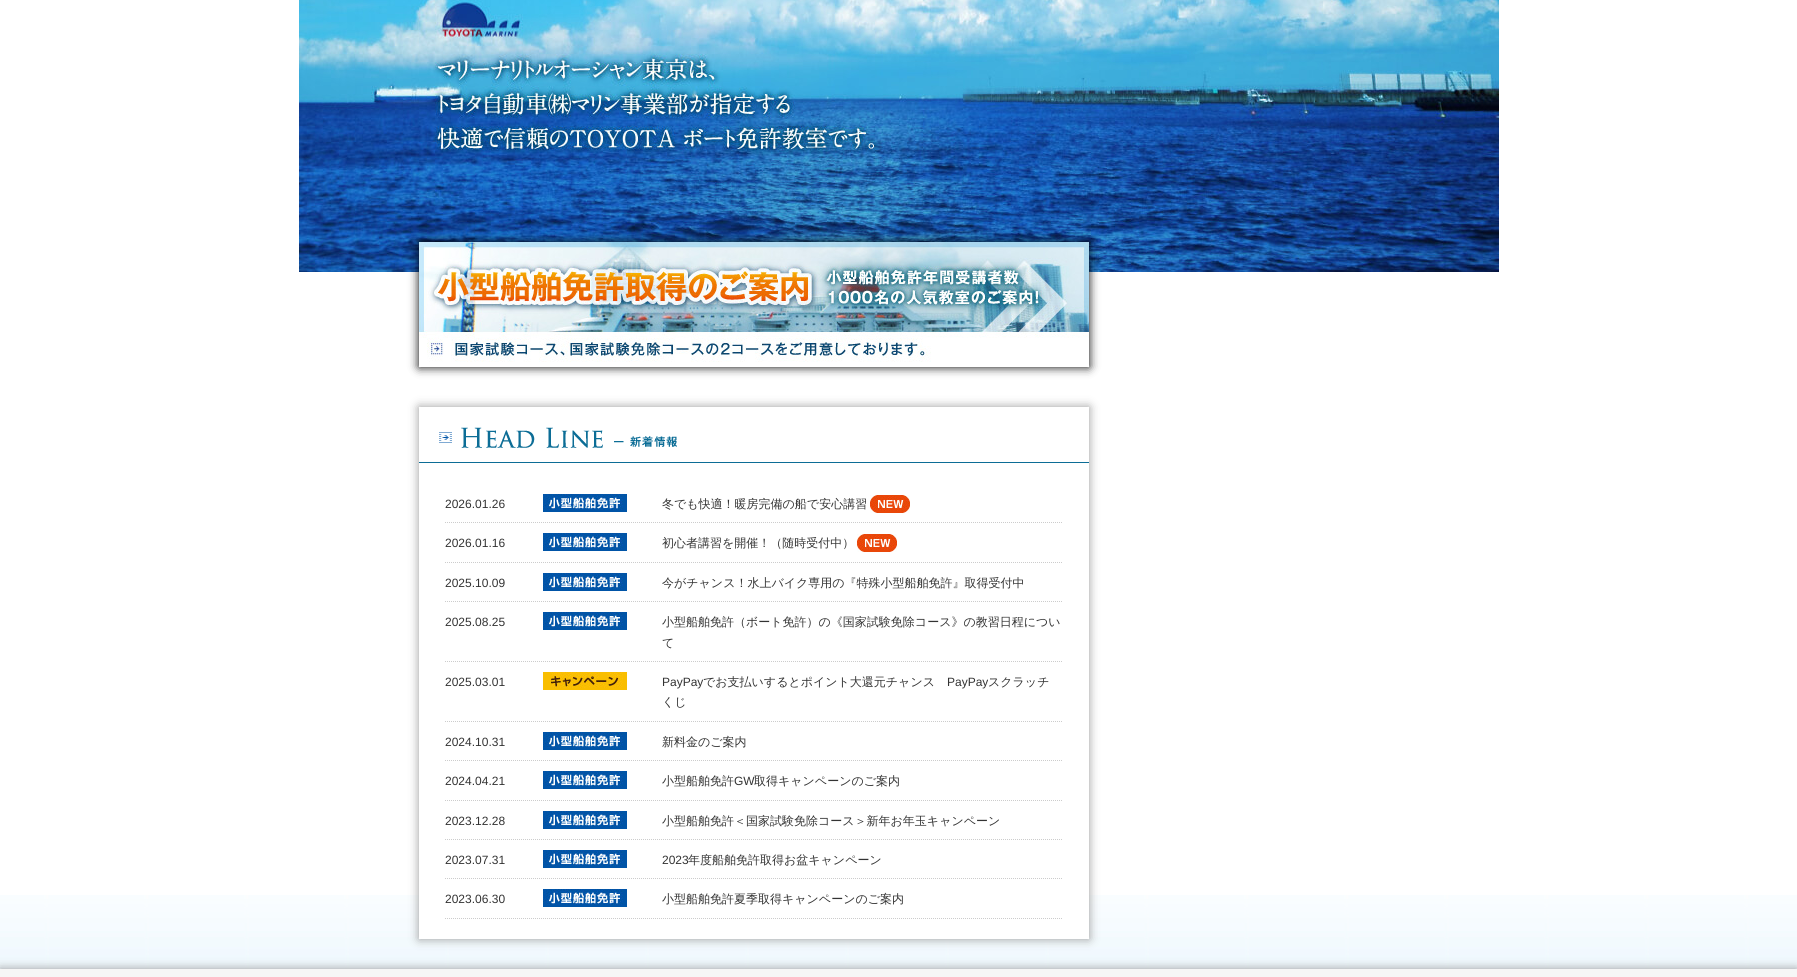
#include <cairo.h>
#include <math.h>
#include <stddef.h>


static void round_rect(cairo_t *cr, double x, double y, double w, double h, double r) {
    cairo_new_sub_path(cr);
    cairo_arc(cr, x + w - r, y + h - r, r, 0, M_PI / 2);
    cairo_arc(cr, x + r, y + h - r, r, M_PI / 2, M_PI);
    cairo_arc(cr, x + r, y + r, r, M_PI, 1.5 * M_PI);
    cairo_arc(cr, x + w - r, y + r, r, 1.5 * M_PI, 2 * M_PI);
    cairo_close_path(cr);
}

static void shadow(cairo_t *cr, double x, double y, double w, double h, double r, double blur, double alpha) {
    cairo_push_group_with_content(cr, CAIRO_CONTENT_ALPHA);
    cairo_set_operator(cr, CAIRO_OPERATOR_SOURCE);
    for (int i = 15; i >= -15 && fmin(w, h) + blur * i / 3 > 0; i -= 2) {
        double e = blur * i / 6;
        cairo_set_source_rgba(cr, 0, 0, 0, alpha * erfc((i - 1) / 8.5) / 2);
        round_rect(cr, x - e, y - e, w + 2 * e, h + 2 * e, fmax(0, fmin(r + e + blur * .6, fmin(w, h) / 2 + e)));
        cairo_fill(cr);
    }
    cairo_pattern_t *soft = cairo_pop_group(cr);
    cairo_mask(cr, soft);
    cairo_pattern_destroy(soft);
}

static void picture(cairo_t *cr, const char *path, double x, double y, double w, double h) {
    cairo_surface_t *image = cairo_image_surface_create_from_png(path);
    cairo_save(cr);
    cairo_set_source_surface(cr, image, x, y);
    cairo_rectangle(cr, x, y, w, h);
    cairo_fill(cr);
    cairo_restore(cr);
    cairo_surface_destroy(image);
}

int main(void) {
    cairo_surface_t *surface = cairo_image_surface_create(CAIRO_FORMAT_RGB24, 1797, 977);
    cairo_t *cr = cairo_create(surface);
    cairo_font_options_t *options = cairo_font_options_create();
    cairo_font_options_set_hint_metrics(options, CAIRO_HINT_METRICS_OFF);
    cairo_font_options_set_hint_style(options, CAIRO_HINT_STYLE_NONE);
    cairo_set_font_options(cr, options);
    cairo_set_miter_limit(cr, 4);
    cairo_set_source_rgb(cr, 1, 1, 1);
    cairo_paint(cr);
    picture(cr, "img1.png", 0, 895, 1797, 74);
    picture(cr, "img2.png", 299, 0, 1200, 272);
    cairo_save(cr);
    cairo_set_fill_rule(cr, CAIRO_FILL_RULE_EVEN_ODD);
    cairo_new_path(cr);
    cairo_move_to(cr, 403, 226);
    cairo_line_to(cr, 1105, 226);
    cairo_line_to(cr, 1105, 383);
    cairo_line_to(cr, 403, 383);
    cairo_close_path(cr);
    cairo_move_to(cr, 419, 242);
    cairo_line_to(cr, 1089, 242);
    cairo_line_to(cr, 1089, 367);
    cairo_line_to(cr, 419, 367);
    cairo_close_path(cr);
    cairo_clip(cr);
    cairo_set_source_rgb(cr, 0, 0, 0);
    shadow(cr, 419, 242, 670, 125, 0, 5, 1);
    cairo_restore(cr);
    picture(cr, "img3.png", 419, 242, 670, 120);
    cairo_set_source_rgb(cr, 0.6, 0.6, 0.6);
    shadow(cr, 419, 407, 670, 532, 0, 5, 1);
    cairo_set_source_rgb(cr, 1, 1, 1);
    cairo_rectangle(cr, 419, 407, 670, 532);
    cairo_fill(cr);
    picture(cr, "img4.png", 439, 432, 13, 11);
    picture(cr, "img5.png", 461, 427, 216, 21);
    cairo_set_source_rgb(cr, 0.047, 0.427, 0.588);
    cairo_rectangle(cr, 419, 462, 670, 1);
    cairo_fill(cr);
    cairo_new_path(cr);
    cairo_move_to(cr, 445, 522.5);
    cairo_line_to(cr, 1062, 522.5);
    cairo_set_source_rgb(cr, 0.8, 0.8, 0.8);
    cairo_set_line_width(cr, 1);
    cairo_set_dash(cr, (double[]){1, 1}, 2, 0);
    cairo_stroke(cr);
    cairo_select_font_face(cr, "Liberation Sans", CAIRO_FONT_SLANT_NORMAL, CAIRO_FONT_WEIGHT_NORMAL);
    cairo_set_font_size(cr, 12);
    cairo_set_source_rgb(cr, 0.2, 0.2, 0.2);
    cairo_move_to(cr, 445, 508);
    cairo_show_text(cr, "2026.01.26");
    picture(cr, "img6.png", 543, 494, 84, 18);
    cairo_select_font_face(cr, "WenQuanYi Zen Hei Medium", CAIRO_FONT_SLANT_NORMAL, CAIRO_FONT_WEIGHT_NORMAL);
    cairo_move_to(cr, 662, 508);
    cairo_show_text(cr, "冬でも快適！暖房完備の船で安心講習");
    picture(cr, "img7.png", 870, 495, 40, 18);
    cairo_new_path(cr);
    cairo_move_to(cr, 445, 562.5);
    cairo_line_to(cr, 1062, 562.5);
    cairo_set_source_rgb(cr, 0.8, 0.8, 0.8);
    cairo_stroke(cr);
    cairo_select_font_face(cr, "Liberation Sans", CAIRO_FONT_SLANT_NORMAL, CAIRO_FONT_WEIGHT_NORMAL);
    cairo_set_source_rgb(cr, 0.2, 0.2, 0.2);
    cairo_move_to(cr, 445, 547);
    cairo_show_text(cr, "2026.01.16");
    picture(cr, "img6.png", 543, 533, 84, 18);
    cairo_select_font_face(cr, "WenQuanYi Zen Hei Medium", CAIRO_FONT_SLANT_NORMAL, CAIRO_FONT_WEIGHT_NORMAL);
    cairo_move_to(cr, 662, 547);
    cairo_show_text(cr, "初心者講習を開催！（随時受付中）");
    picture(cr, "img7.png", 857, 534, 40, 18);
    cairo_new_path(cr);
    cairo_move_to(cr, 445, 601.5);
    cairo_line_to(cr, 1062, 601.5);
    cairo_set_source_rgb(cr, 0.8, 0.8, 0.8);
    cairo_stroke(cr);
    cairo_select_font_face(cr, "Liberation Sans", CAIRO_FONT_SLANT_NORMAL, CAIRO_FONT_WEIGHT_NORMAL);
    cairo_set_source_rgb(cr, 0.2, 0.2, 0.2);
    cairo_move_to(cr, 445, 587);
    cairo_show_text(cr, "2025.10.09");
    picture(cr, "img6.png", 543, 573, 84, 18);
    cairo_select_font_face(cr, "WenQuanYi Zen Hei Medium", CAIRO_FONT_SLANT_NORMAL, CAIRO_FONT_WEIGHT_NORMAL);
    cairo_move_to(cr, 662, 587);
    cairo_show_text(cr, "今がチャンス！水上バイク専用の『特殊小型船舶免許』取得受付中");
    cairo_new_path(cr);
    cairo_move_to(cr, 445, 661.5);
    cairo_line_to(cr, 1062, 661.5);
    cairo_set_source_rgb(cr, 0.8, 0.8, 0.8);
    cairo_stroke(cr);
    cairo_select_font_face(cr, "Liberation Sans", CAIRO_FONT_SLANT_NORMAL, CAIRO_FONT_WEIGHT_NORMAL);
    cairo_set_source_rgb(cr, 0.2, 0.2, 0.2);
    cairo_move_to(cr, 445, 626);
    cairo_show_text(cr, "2025.08.25");
    picture(cr, "img6.png", 543, 612, 84, 18);
    cairo_select_font_face(cr, "WenQuanYi Zen Hei Medium", CAIRO_FONT_SLANT_NORMAL, CAIRO_FONT_WEIGHT_NORMAL);
    cairo_move_to(cr, 662, 626);
    cairo_show_text(cr, "小型船舶免許（ボート免許）の《国家試験免除コース》の教習日程につい");
    cairo_move_to(cr, 662, 647);
    cairo_show_text(cr, "て");
    cairo_new_path(cr);
    cairo_move_to(cr, 445, 721.5);
    cairo_line_to(cr, 1062, 721.5);
    cairo_set_source_rgb(cr, 0.8, 0.8, 0.8);
    cairo_stroke(cr);
    cairo_select_font_face(cr, "Liberation Sans", CAIRO_FONT_SLANT_NORMAL, CAIRO_FONT_WEIGHT_NORMAL);
    cairo_set_source_rgb(cr, 0.2, 0.2, 0.2);
    cairo_move_to(cr, 445, 686);
    cairo_show_text(cr, "2025.03.01");
    picture(cr, "img8.png", 543, 672, 84, 18);
    cairo_move_to(cr, 662, 686);
    cairo_show_text(cr, "PayPay");
    cairo_select_font_face(cr, "WenQuanYi Zen Hei Medium", CAIRO_FONT_SLANT_NORMAL, CAIRO_FONT_WEIGHT_NORMAL);
    cairo_move_to(cr, 703, 686);
    cairo_show_text(cr, "でお支払いするとポイント大還元チャンス");
    cairo_select_font_face(cr, "Liberation Sans", CAIRO_FONT_SLANT_NORMAL, CAIRO_FONT_WEIGHT_NORMAL);
    cairo_move_to(cr, 947, 686);
    cairo_show_text(cr, "PayPay");
    cairo_select_font_face(cr, "WenQuanYi Zen Hei Medium", CAIRO_FONT_SLANT_NORMAL, CAIRO_FONT_WEIGHT_NORMAL);
    cairo_move_to(cr, 988, 686);
    cairo_show_text(cr, "スクラッチ");
    cairo_move_to(cr, 662, 706);
    cairo_show_text(cr, "くじ");
    cairo_new_path(cr);
    cairo_move_to(cr, 445, 760.5);
    cairo_line_to(cr, 1062, 760.5);
    cairo_set_source_rgb(cr, 0.8, 0.8, 0.8);
    cairo_stroke(cr);
    cairo_select_font_face(cr, "Liberation Sans", CAIRO_FONT_SLANT_NORMAL, CAIRO_FONT_WEIGHT_NORMAL);
    cairo_set_source_rgb(cr, 0.2, 0.2, 0.2);
    cairo_move_to(cr, 445, 746);
    cairo_show_text(cr, "2024.10.31");
    picture(cr, "img6.png", 543, 732, 84, 18);
    cairo_select_font_face(cr, "WenQuanYi Zen Hei Medium", CAIRO_FONT_SLANT_NORMAL, CAIRO_FONT_WEIGHT_NORMAL);
    cairo_move_to(cr, 662, 746);
    cairo_show_text(cr, "新料金のご案内");
    cairo_new_path(cr);
    cairo_move_to(cr, 445, 800.5);
    cairo_line_to(cr, 1062, 800.5);
    cairo_set_source_rgb(cr, 0.8, 0.8, 0.8);
    cairo_stroke(cr);
    cairo_select_font_face(cr, "Liberation Sans", CAIRO_FONT_SLANT_NORMAL, CAIRO_FONT_WEIGHT_NORMAL);
    cairo_set_source_rgb(cr, 0.2, 0.2, 0.2);
    cairo_move_to(cr, 445, 785);
    cairo_show_text(cr, "2024.04.21");
    picture(cr, "img6.png", 543, 771, 84, 18);
    cairo_select_font_face(cr, "WenQuanYi Zen Hei Medium", CAIRO_FONT_SLANT_NORMAL, CAIRO_FONT_WEIGHT_NORMAL);
    cairo_move_to(cr, 662, 785);
    cairo_show_text(cr, "小型船舶免許");
    cairo_select_font_face(cr, "Liberation Sans", CAIRO_FONT_SLANT_NORMAL, CAIRO_FONT_WEIGHT_NORMAL);
    cairo_move_to(cr, 734, 785);
    cairo_show_text(cr, "GW");
    cairo_select_font_face(cr, "WenQuanYi Zen Hei Medium", CAIRO_FONT_SLANT_NORMAL, CAIRO_FONT_WEIGHT_NORMAL);
    cairo_move_to(cr, 754, 785);
    cairo_show_text(cr, "取得キャンペーンのご案内");
    cairo_new_path(cr);
    cairo_move_to(cr, 445, 839.5);
    cairo_line_to(cr, 1062, 839.5);
    cairo_set_source_rgb(cr, 0.8, 0.8, 0.8);
    cairo_stroke(cr);
    cairo_select_font_face(cr, "Liberation Sans", CAIRO_FONT_SLANT_NORMAL, CAIRO_FONT_WEIGHT_NORMAL);
    cairo_set_source_rgb(cr, 0.2, 0.2, 0.2);
    cairo_move_to(cr, 445, 825);
    cairo_show_text(cr, "2023.12.28");
    picture(cr, "img6.png", 543, 811, 84, 18);
    cairo_select_font_face(cr, "WenQuanYi Zen Hei Medium", CAIRO_FONT_SLANT_NORMAL, CAIRO_FONT_WEIGHT_NORMAL);
    cairo_move_to(cr, 662, 825);
    cairo_show_text(cr, "小型船舶免許＜国家試験免除コース＞新年お年玉キャンペーン");
    cairo_new_path(cr);
    cairo_move_to(cr, 445, 878.5);
    cairo_line_to(cr, 1062, 878.5);
    cairo_set_source_rgb(cr, 0.8, 0.8, 0.8);
    cairo_stroke(cr);
    cairo_select_font_face(cr, "Liberation Sans", CAIRO_FONT_SLANT_NORMAL, CAIRO_FONT_WEIGHT_NORMAL);
    cairo_set_source_rgb(cr, 0.2, 0.2, 0.2);
    cairo_move_to(cr, 445, 864);
    cairo_show_text(cr, "2023.07.31");
    picture(cr, "img6.png", 543, 850, 84, 18);
    cairo_move_to(cr, 662, 864);
    cairo_show_text(cr, "2023");
    cairo_select_font_face(cr, "WenQuanYi Zen Hei Medium", CAIRO_FONT_SLANT_NORMAL, CAIRO_FONT_WEIGHT_NORMAL);
    cairo_move_to(cr, 688, 864);
    cairo_show_text(cr, "年度船舶免許取得お盆キャンペーン");
    cairo_new_path(cr);
    cairo_move_to(cr, 445, 918.5);
    cairo_line_to(cr, 1062, 918.5);
    cairo_set_source_rgb(cr, 0.8, 0.8, 0.8);
    cairo_stroke(cr);
    cairo_select_font_face(cr, "Liberation Sans", CAIRO_FONT_SLANT_NORMAL, CAIRO_FONT_WEIGHT_NORMAL);
    cairo_set_source_rgb(cr, 0.2, 0.2, 0.2);
    cairo_move_to(cr, 445, 903);
    cairo_show_text(cr, "2023.06.30");
    picture(cr, "img6.png", 543, 889, 84, 18);
    cairo_select_font_face(cr, "WenQuanYi Zen Hei Medium", CAIRO_FONT_SLANT_NORMAL, CAIRO_FONT_WEIGHT_NORMAL);
    cairo_move_to(cr, 662, 903);
    cairo_show_text(cr, "小型船舶免許夏季取得キャンペーンのご案内");
    cairo_set_source_rgb(cr, 0.6, 0.6, 0.6);
    shadow(cr, 0, 969, 1797, 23, 0, 5, 1);
    cairo_set_source_rgb(cr, 0.961, 0.961, 0.961);
    cairo_rectangle(cr, 0, 969, 1797, 8);
    cairo_fill(cr);
    cairo_surface_write_to_png(surface, "page.png");
    cairo_font_options_destroy(options);
    cairo_destroy(cr);
    cairo_surface_destroy(surface);
    return 0;
}
